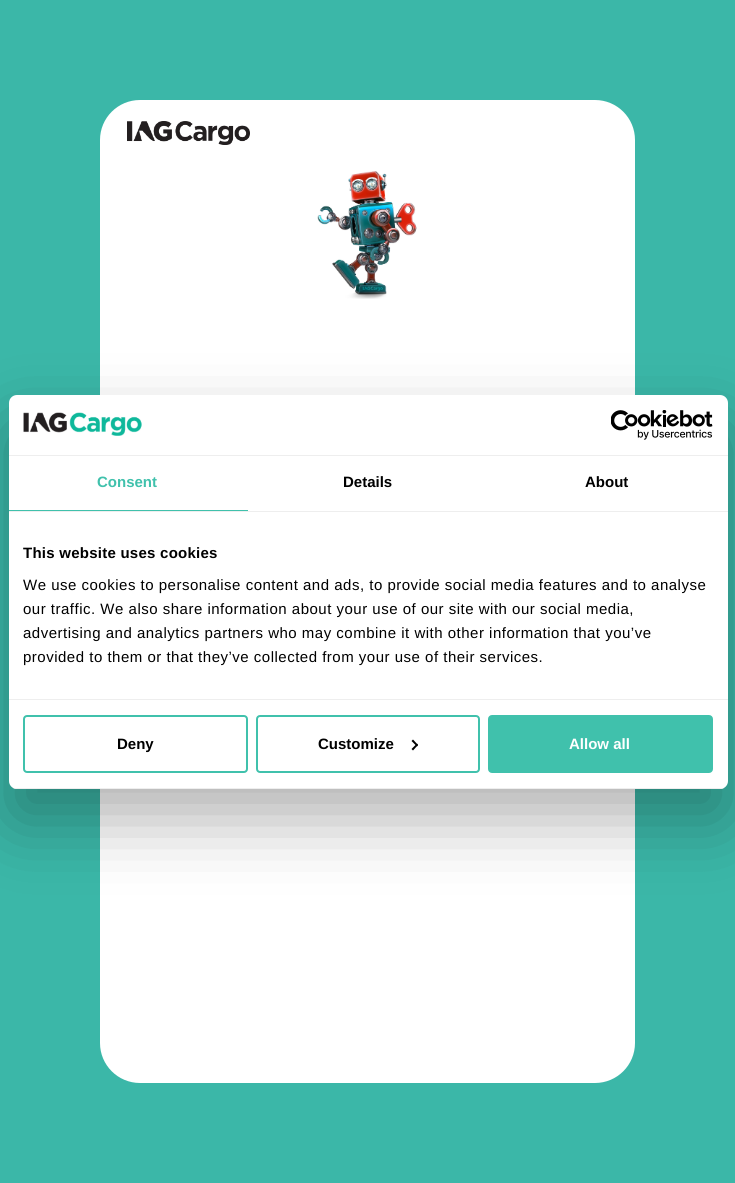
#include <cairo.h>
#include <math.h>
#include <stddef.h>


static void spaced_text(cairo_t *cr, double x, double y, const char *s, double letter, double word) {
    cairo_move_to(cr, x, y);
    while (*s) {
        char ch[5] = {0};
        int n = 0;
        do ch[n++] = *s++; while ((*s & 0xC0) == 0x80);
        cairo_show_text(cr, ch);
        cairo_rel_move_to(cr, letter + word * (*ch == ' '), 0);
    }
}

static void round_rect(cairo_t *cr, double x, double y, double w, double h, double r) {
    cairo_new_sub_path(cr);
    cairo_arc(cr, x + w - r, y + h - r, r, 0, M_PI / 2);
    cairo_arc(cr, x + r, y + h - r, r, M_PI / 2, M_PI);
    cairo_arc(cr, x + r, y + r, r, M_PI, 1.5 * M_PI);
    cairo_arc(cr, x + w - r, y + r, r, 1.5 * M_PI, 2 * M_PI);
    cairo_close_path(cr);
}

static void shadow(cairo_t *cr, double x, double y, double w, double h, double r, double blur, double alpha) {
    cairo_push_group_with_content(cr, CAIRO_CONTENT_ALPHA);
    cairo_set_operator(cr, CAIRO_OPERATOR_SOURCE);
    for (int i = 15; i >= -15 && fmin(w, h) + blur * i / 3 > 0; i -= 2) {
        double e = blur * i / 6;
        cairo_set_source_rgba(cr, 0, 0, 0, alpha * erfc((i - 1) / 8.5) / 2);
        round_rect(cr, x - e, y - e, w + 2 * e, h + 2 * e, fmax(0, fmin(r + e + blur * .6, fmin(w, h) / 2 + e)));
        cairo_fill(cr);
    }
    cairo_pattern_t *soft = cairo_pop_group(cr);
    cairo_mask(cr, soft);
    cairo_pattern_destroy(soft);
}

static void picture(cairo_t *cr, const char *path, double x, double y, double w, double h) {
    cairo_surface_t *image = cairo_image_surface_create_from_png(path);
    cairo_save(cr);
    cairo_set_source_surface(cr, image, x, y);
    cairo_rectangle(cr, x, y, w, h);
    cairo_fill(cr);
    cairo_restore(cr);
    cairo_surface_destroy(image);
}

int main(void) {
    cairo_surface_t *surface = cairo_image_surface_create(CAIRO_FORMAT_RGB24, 735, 1183);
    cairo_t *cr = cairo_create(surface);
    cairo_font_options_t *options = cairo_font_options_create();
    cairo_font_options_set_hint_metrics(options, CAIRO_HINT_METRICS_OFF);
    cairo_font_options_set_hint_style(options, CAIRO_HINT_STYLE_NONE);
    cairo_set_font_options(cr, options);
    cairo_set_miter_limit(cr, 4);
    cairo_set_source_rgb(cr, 0.231, 0.718, 0.659);
    cairo_paint(cr);
    cairo_set_source_rgb(cr, 1, 1, 1);
    round_rect(cr, 100, 100, 535, 983, 40);
    cairo_fill(cr);
    picture(cr, "img1.png", 127, 121, 123, 24);
    picture(cr, "img2.png", 317, 171, 100, 128);
    cairo_set_source_rgb(cr, 0, 0, 0);
    shadow(cr, 9, 427, 719, 394, 8, 34, 0.3);
    cairo_set_source_rgb(cr, 1, 1, 1);
    round_rect(cr, 9, 395, 719, 394, 8);
    cairo_fill(cr);
    cairo_set_source_rgb(cr, 0.933, 0.933, 0.933);
    cairo_rectangle(cr, 9, 455, 719, 1);
    cairo_fill(cr);
    picture(cr, "img3.png", 23, 412, 119, 24);
    picture(cr, "img4.png", 611, 410, 102, 30);
    cairo_rectangle(cr, 9, 511, 719, 1);
    cairo_fill(cr);
    cairo_set_source_rgb(cr, 0.251, 0.757, 0.675);
    cairo_rectangle(cr, 9, 510, 239, 1);
    cairo_fill(cr);
    cairo_select_font_face(cr, "Liberation Sans", CAIRO_FONT_SLANT_NORMAL, CAIRO_FONT_WEIGHT_BOLD);
    cairo_set_font_size(cr, 15);
    cairo_move_to(cr, 97, 487);
    cairo_show_text(cr, "Consent");
    cairo_set_source_rgb(cr, 0, 0, 0);
    cairo_move_to(cr, 343, 487);
    cairo_show_text(cr, "Details");
    cairo_move_to(cr, 585, 487);
    cairo_show_text(cr, "About");
    cairo_set_source_rgb(cr, 0.933, 0.933, 0.933);
    cairo_rectangle(cr, 9, 699, 719, 1);
    cairo_fill(cr);
    cairo_set_source_rgb(cr, 0, 0, 0);
    spaced_text(cr, 23, 558, "This website uses cookies", 0.25, 0);
    cairo_select_font_face(cr, "Liberation Sans", CAIRO_FONT_SLANT_NORMAL, CAIRO_FONT_WEIGHT_NORMAL);
    spaced_text(cr, 23, 590, "We use cookies to personalise content and ads, to provide social media features and to analyse", 0.5, 0);
    spaced_text(cr, 23, 614, "our traffic. We also share information about your use of our site with our social media,", 0.5, 0);
    spaced_text(cr, 23, 638, "advertising and analytics partners who may combine it with other information that you’ve", 0.5, 0);
    spaced_text(cr, 23, 662, "provided to them or that they’ve collected from your use of their services.", 0.5, 0);
    cairo_save(cr);
    round_rect(cr, 9, 395, 719, 394, 8);
    cairo_clip(cr);
    cairo_set_source_rgb(cr, 0.933, 0.933, 0.933);
    cairo_rectangle(cr, 9, 788, 719, 1);
    cairo_fill(cr);
    cairo_restore(cr);
    round_rect(cr, 24, 716, 223, 56, 3);
    cairo_set_source_rgb(cr, 0.251, 0.757, 0.675);
    cairo_stroke(cr);
    cairo_select_font_face(cr, "Liberation Sans", CAIRO_FONT_SLANT_NORMAL, CAIRO_FONT_WEIGHT_BOLD);
    cairo_set_source_rgb(cr, 0, 0, 0);
    cairo_move_to(cr, 117, 749);
    cairo_show_text(cr, "Deny");
    round_rect(cr, 257, 716, 222, 56, 3);
    cairo_set_source_rgb(cr, 0.251, 0.757, 0.675);
    cairo_stroke(cr);
    cairo_set_source_rgb(cr, 0, 0, 0);
    cairo_move_to(cr, 318, 749);
    cairo_show_text(cr, "Customize");
    cairo_new_path(cr);
    cairo_move_to(cr, 413, 739.5);
    cairo_line_to(cr, 418, 745);
    cairo_line_to(cr, 417, 746.5);
    cairo_line_to(cr, 411.5, 741);
    cairo_close_path(cr);
    cairo_fill(cr);
    cairo_new_path(cr);
    cairo_move_to(cr, 417, 743.5);
    cairo_line_to(cr, 418, 745);
    cairo_line_to(cr, 413, 750.5);
    cairo_line_to(cr, 411.5, 749);
    cairo_close_path(cr);
    cairo_fill(cr);
    cairo_set_source_rgb(cr, 0.251, 0.757, 0.675);
    round_rect(cr, 489, 716, 223, 56, 3);
    cairo_fill_preserve(cr);
    cairo_stroke(cr);
    cairo_set_source_rgb(cr, 1, 1, 1);
    cairo_move_to(cr, 569, 749);
    cairo_show_text(cr, "Allow all");
    cairo_surface_write_to_png(surface, "page.png");
    cairo_font_options_destroy(options);
    cairo_destroy(cr);
    cairo_surface_destroy(surface);
    return 0;
}
